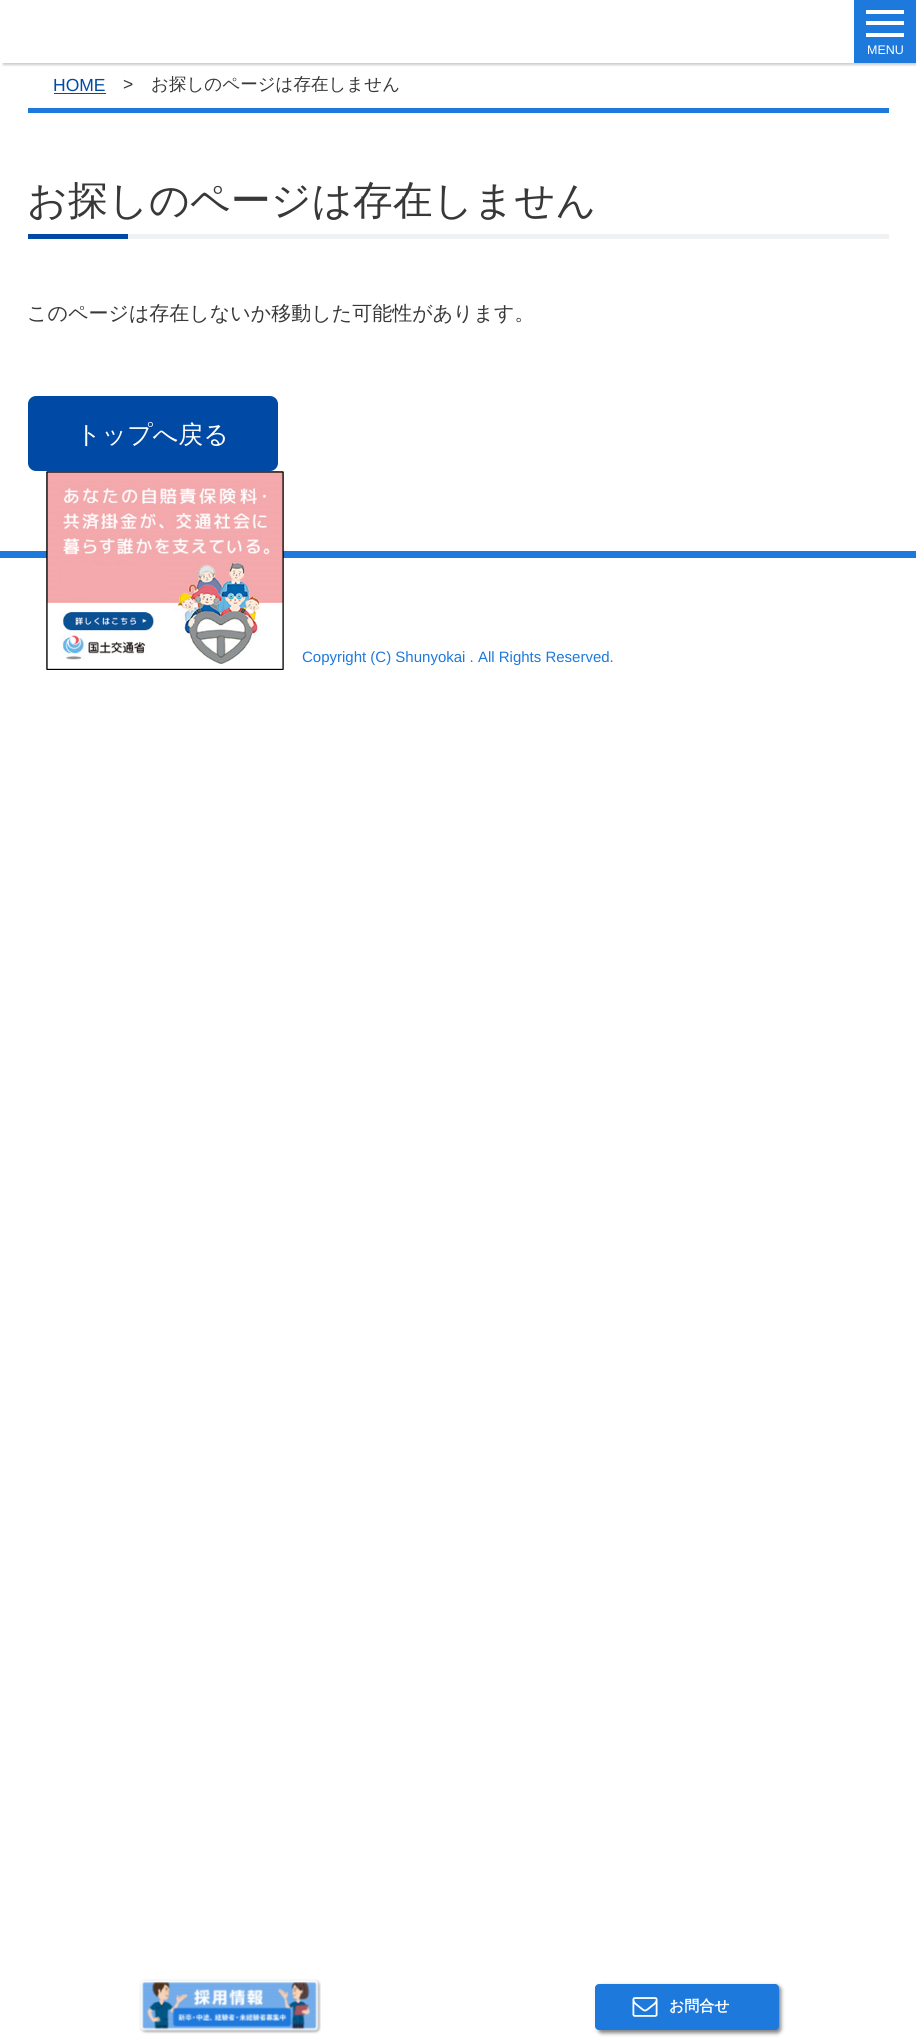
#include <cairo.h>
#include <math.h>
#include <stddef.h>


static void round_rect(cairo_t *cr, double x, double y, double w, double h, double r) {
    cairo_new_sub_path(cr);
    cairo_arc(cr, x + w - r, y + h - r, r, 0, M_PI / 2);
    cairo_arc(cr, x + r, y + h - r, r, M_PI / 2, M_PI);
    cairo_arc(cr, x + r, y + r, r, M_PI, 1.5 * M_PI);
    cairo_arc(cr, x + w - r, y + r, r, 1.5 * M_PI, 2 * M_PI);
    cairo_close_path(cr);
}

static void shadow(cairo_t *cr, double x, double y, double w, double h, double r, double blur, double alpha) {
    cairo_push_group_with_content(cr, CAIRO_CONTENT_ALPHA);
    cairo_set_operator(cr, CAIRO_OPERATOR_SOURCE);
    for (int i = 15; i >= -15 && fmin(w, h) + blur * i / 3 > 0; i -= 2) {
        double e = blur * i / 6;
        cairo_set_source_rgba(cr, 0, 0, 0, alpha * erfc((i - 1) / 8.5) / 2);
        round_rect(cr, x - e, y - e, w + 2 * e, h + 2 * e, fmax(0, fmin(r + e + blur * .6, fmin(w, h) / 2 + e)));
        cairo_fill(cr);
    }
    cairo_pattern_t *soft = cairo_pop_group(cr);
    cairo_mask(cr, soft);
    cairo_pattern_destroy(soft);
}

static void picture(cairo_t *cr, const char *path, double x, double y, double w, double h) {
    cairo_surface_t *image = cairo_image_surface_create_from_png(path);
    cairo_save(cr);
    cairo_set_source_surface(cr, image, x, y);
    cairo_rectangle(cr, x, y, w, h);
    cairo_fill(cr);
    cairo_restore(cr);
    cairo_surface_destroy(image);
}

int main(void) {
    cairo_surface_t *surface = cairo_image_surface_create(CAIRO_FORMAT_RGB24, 916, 2042);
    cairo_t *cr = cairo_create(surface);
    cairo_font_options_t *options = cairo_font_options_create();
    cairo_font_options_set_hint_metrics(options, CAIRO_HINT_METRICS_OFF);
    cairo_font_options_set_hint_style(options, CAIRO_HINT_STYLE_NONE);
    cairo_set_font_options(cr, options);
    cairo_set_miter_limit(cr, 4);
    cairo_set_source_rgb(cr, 1, 1, 1);
    cairo_paint(cr);
    cairo_save(cr);
    cairo_set_fill_rule(cr, CAIRO_FILL_RULE_EVEN_ODD);
    cairo_new_path(cr);
    cairo_move_to(cr, 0, 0);
    cairo_line_to(cr, 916, 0);
    cairo_line_to(cr, 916, 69);
    cairo_line_to(cr, 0, 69);
    cairo_close_path(cr);
    cairo_move_to(cr, 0, 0);
    cairo_line_to(cr, 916, 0);
    cairo_line_to(cr, 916, 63);
    cairo_line_to(cr, 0, 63);
    cairo_close_path(cr);
    cairo_clip(cr);
    cairo_set_source_rgb(cr, 0, 0, 0);
    shadow(cr, 3, 3, 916, 62, 0, 1, 0.2);
    cairo_restore(cr);
    cairo_set_source_rgba(cr, 1, 1, 1, 0.9);
    cairo_rectangle(cr, 2, 62, 852, 1);
    cairo_fill(cr);
    cairo_set_source_rgb(cr, 0.118, 0.475, 0.867);
    cairo_rectangle(cr, 854, 0, 62, 63);
    cairo_fill(cr);
    cairo_set_source_rgb(cr, 1, 1, 1);
    cairo_rectangle(cr, 866, 10, 38, 4);
    cairo_fill(cr);
    cairo_rectangle(cr, 866, 21, 38, 4);
    cairo_fill(cr);
    cairo_rectangle(cr, 866, 33, 38, 4);
    cairo_fill(cr);
    cairo_select_font_face(cr, "Liberation Sans", CAIRO_FONT_SLANT_NORMAL, CAIRO_FONT_WEIGHT_NORMAL);
    cairo_set_font_size(cr, 12.5);
    cairo_move_to(cr, 867, 54);
    cairo_show_text(cr, "MENU");
    cairo_set_source_rgb(cr, 0.118, 0.475, 0.867);
    cairo_rectangle(cr, 28, 108, 861, 5);
    cairo_fill(cr);
    cairo_set_font_size(cr, 17.5);
    cairo_set_source_rgb(cr, 0, 0.286, 0.643);
    cairo_move_to(cr, 53, 91);
    cairo_show_text(cr, "HOME");
    cairo_rectangle(cr, 54, 93, 52, 1);
    cairo_fill(cr);
    cairo_set_source_rgb(cr, 0.22, 0.22, 0.22);
    cairo_move_to(cr, 123, 90);
    cairo_show_text(cr, ">");
    cairo_select_font_face(cr, "WenQuanYi Zen Hei Medium", CAIRO_FONT_SLANT_NORMAL, CAIRO_FONT_WEIGHT_NORMAL);
    cairo_move_to(cr, 151, 90);
    cairo_show_text(cr, "お探しのページは存在しません");
    cairo_set_source_rgb(cr, 0.941, 0.945, 0.949);
    cairo_rectangle(cr, 128, 234, 761, 5);
    cairo_fill(cr);
    cairo_set_font_size(cr, 40);
    cairo_set_source_rgb(cr, 0.22, 0.22, 0.22);
    cairo_move_to(cr, 27, 214);
    cairo_show_text(cr, "お探しのページは存在しません");
    cairo_set_source_rgb(cr, 0, 0.286, 0.643);
    cairo_rectangle(cr, 28, 234, 100, 5);
    cairo_fill(cr);
    cairo_set_font_size(cr, 20);
    cairo_set_source_rgb(cr, 0.22, 0.22, 0.22);
    cairo_move_to(cr, 27, 320);
    cairo_show_text(cr, "このページは存在しないか移動した可能性があります。");
    cairo_set_source_rgb(cr, 0, 0.286, 0.643);
    round_rect(cr, 28, 396, 250, 75, 8);
    cairo_fill(cr);
    cairo_set_font_size(cr, 25);
    cairo_set_source_rgb(cr, 1, 1, 1);
    cairo_move_to(cr, 76, 443);
    cairo_show_text(cr, "トップへ戻る");
    cairo_set_source_rgb(cr, 0.118, 0.475, 0.867);
    cairo_rectangle(cr, 0, 551, 916, 7);
    cairo_fill(cr);
    picture(cr, "img1.png", 46, 471, 238, 199);
    cairo_select_font_face(cr, "Liberation Sans", CAIRO_FONT_SLANT_NORMAL, CAIRO_FONT_WEIGHT_NORMAL);
    cairo_set_font_size(cr, 15);
    cairo_move_to(cr, 302, 662);
    cairo_show_text(cr, "Copyright (C) Shunyokai . All Rights Reserved.");
    picture(cr, "img2.png", 139, 1979, 182, 55);
    cairo_set_source_rgb(cr, 0, 0, 0);
    shadow(cr, 598, 1986, 183, 47, 4, 2, 0.5);
    cairo_set_source_rgb(cr, 0.118, 0.475, 0.867);
    round_rect(cr, 595, 1984, 184, 46, 4);
    cairo_fill(cr);
    picture(cr, "img3.png", 632, 1997, 26, 20);
    cairo_select_font_face(cr, "WenQuanYi Zen Hei", CAIRO_FONT_SLANT_NORMAL, CAIRO_FONT_WEIGHT_BOLD);
    cairo_set_source_rgb(cr, 1, 1, 1);
    cairo_move_to(cr, 669, 2011);
    cairo_show_text(cr, "お問合せ");
    cairo_surface_write_to_png(surface, "page.png");
    cairo_font_options_destroy(options);
    cairo_destroy(cr);
    cairo_surface_destroy(surface);
    return 0;
}
